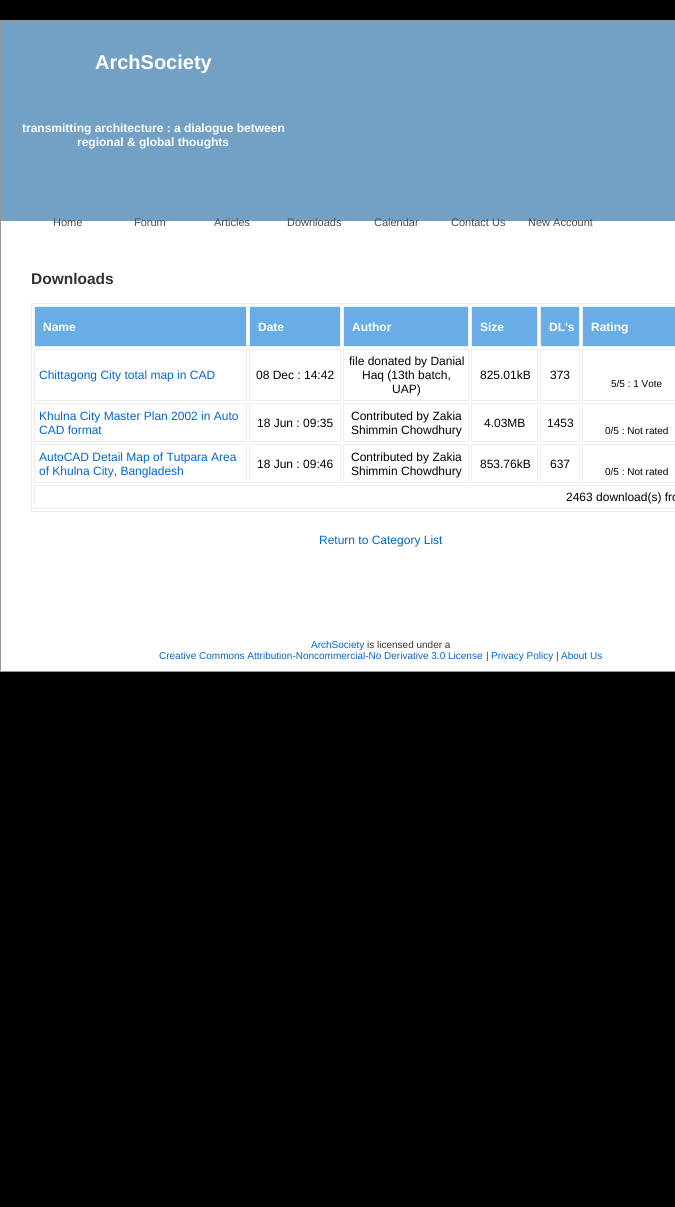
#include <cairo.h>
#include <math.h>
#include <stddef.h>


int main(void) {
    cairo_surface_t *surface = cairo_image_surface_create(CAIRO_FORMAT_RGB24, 675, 1207);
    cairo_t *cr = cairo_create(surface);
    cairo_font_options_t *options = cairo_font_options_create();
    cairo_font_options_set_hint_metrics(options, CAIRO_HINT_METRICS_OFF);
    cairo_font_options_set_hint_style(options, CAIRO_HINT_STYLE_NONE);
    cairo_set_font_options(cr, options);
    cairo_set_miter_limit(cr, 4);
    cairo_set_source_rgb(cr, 0, 0, 0);
    cairo_paint(cr);
    cairo_set_source_rgb(cr, 1, 1, 1);
    cairo_rectangle(cr, 1, 221, 674, 450);
    cairo_fill(cr);
    cairo_rectangle(cr, 0.5, 20.5, 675, 651);
    cairo_set_source_rgb(cr, 0.584, 0.584, 0.588);
    cairo_set_line_width(cr, 1);
    cairo_stroke(cr);
    cairo_set_source_rgb(cr, 0.451, 0.627, 0.773);
    cairo_rectangle(cr, 1, 21, 674, 200);
    cairo_fill(cr);
    cairo_select_font_face(cr, "Liberation Sans", CAIRO_FONT_SLANT_NORMAL, CAIRO_FONT_WEIGHT_BOLD);
    cairo_set_font_size(cr, 20);
    cairo_set_source_rgb(cr, 1, 1, 1);
    cairo_move_to(cr, 95, 69);
    cairo_show_text(cr, "ArchSociety");
    cairo_set_font_size(cr, 12);
    cairo_move_to(cr, 22, 132);
    cairo_show_text(cr, "transmitting architecture : a dialogue between");
    cairo_move_to(cr, 77, 146);
    cairo_show_text(cr, "regional & global thoughts");
    cairo_select_font_face(cr, "Liberation Sans", CAIRO_FONT_SLANT_NORMAL, CAIRO_FONT_WEIGHT_NORMAL);
    cairo_set_font_size(cr, 11);
    cairo_set_source_rgb(cr, 0.306, 0.306, 0.306);
    cairo_move_to(cr, 53, 226);
    cairo_show_text(cr, "Home");
    cairo_move_to(cr, 134, 226);
    cairo_show_text(cr, "Forum");
    cairo_move_to(cr, 214, 226);
    cairo_show_text(cr, "Articles");
    cairo_move_to(cr, 287, 226);
    cairo_show_text(cr, "Downloads");
    cairo_move_to(cr, 374, 226);
    cairo_show_text(cr, "Calendar");
    cairo_move_to(cr, 451, 226);
    cairo_show_text(cr, "Contact Us");
    cairo_move_to(cr, 528, 226);
    cairo_show_text(cr, "New Account");
    cairo_select_font_face(cr, "Liberation Sans", CAIRO_FONT_SLANT_NORMAL, CAIRO_FONT_WEIGHT_BOLD);
    cairo_set_font_size(cr, 15.5);
    cairo_set_source_rgb(cr, 0.2, 0.2, 0.2);
    cairo_move_to(cr, 31, 284);
    cairo_show_text(cr, "Downloads");
    cairo_rectangle(cr, 31.5, 303.5, 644, 208);
    cairo_set_source_rgb(cr, 0.929, 0.929, 0.929);
    cairo_stroke(cr);
    cairo_set_source_rgb(cr, 0.408, 0.678, 0.898);
    cairo_rectangle(cr, 34.5, 306.5, 212, 40);
    cairo_fill_preserve(cr);
    cairo_set_source_rgb(cr, 0.929, 0.929, 0.929);
    cairo_stroke(cr);
    cairo_set_font_size(cr, 12);
    cairo_set_source_rgb(cr, 1, 1, 1);
    cairo_move_to(cr, 43, 331);
    cairo_show_text(cr, "Name");
    cairo_set_source_rgb(cr, 0.408, 0.678, 0.898);
    cairo_rectangle(cr, 249.5, 306.5, 91, 40);
    cairo_fill_preserve(cr);
    cairo_set_source_rgb(cr, 0.929, 0.929, 0.929);
    cairo_stroke(cr);
    cairo_set_source_rgb(cr, 1, 1, 1);
    cairo_move_to(cr, 258, 331);
    cairo_show_text(cr, "Date");
    cairo_set_source_rgb(cr, 0.408, 0.678, 0.898);
    cairo_rectangle(cr, 343.5, 306.5, 125, 40);
    cairo_fill_preserve(cr);
    cairo_set_source_rgb(cr, 0.929, 0.929, 0.929);
    cairo_stroke(cr);
    cairo_set_source_rgb(cr, 1, 1, 1);
    cairo_move_to(cr, 352, 331);
    cairo_show_text(cr, "Author");
    cairo_set_source_rgb(cr, 0.408, 0.678, 0.898);
    cairo_rectangle(cr, 471.5, 306.5, 66, 40);
    cairo_fill_preserve(cr);
    cairo_set_source_rgb(cr, 0.929, 0.929, 0.929);
    cairo_stroke(cr);
    cairo_set_source_rgb(cr, 1, 1, 1);
    cairo_move_to(cr, 480, 331);
    cairo_show_text(cr, "Size");
    cairo_set_source_rgb(cr, 0.408, 0.678, 0.898);
    cairo_rectangle(cr, 540.5, 306.5, 39, 40);
    cairo_fill_preserve(cr);
    cairo_set_source_rgb(cr, 0.929, 0.929, 0.929);
    cairo_stroke(cr);
    cairo_set_source_rgb(cr, 1, 1, 1);
    cairo_move_to(cr, 549, 331);
    cairo_show_text(cr, "DL's");
    cairo_set_source_rgb(cr, 0.408, 0.678, 0.898);
    cairo_rectangle(cr, 582.5, 306.5, 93, 40);
    cairo_fill_preserve(cr);
    cairo_set_source_rgb(cr, 0.929, 0.929, 0.929);
    cairo_stroke(cr);
    cairo_set_source_rgb(cr, 1, 1, 1);
    cairo_move_to(cr, 591, 331);
    cairo_show_text(cr, "Rating");
    cairo_rectangle(cr, 34.5, 349.5, 212, 51);
    cairo_set_source_rgb(cr, 0.929, 0.929, 0.929);
    cairo_stroke(cr);
    cairo_select_font_face(cr, "Liberation Sans", CAIRO_FONT_SLANT_NORMAL, CAIRO_FONT_WEIGHT_NORMAL);
    cairo_set_source_rgb(cr, 0, 0.4, 0.8);
    cairo_move_to(cr, 39, 379);
    cairo_show_text(cr, "Chittagong City total map in CAD");
    cairo_rectangle(cr, 249.5, 349.5, 91, 51);
    cairo_set_source_rgb(cr, 0.929, 0.929, 0.929);
    cairo_stroke(cr);
    cairo_set_source_rgb(cr, 0, 0, 0);
    cairo_move_to(cr, 256, 379);
    cairo_show_text(cr, "08 Dec : 14:42");
    cairo_rectangle(cr, 343.5, 349.5, 125, 51);
    cairo_set_source_rgb(cr, 0.929, 0.929, 0.929);
    cairo_stroke(cr);
    cairo_set_source_rgb(cr, 0, 0, 0);
    cairo_move_to(cr, 349, 365);
    cairo_show_text(cr, "file donated by Danial");
    cairo_move_to(cr, 362, 379);
    cairo_show_text(cr, "Haq (13th batch,");
    cairo_move_to(cr, 392, 393);
    cairo_show_text(cr, "UAP)");
    cairo_rectangle(cr, 471.5, 349.5, 66, 51);
    cairo_set_source_rgb(cr, 0.929, 0.929, 0.929);
    cairo_stroke(cr);
    cairo_set_source_rgb(cr, 0, 0, 0);
    cairo_move_to(cr, 480, 379);
    cairo_show_text(cr, "825.01kB");
    cairo_rectangle(cr, 540.5, 349.5, 39, 51);
    cairo_set_source_rgb(cr, 0.929, 0.929, 0.929);
    cairo_stroke(cr);
    cairo_set_source_rgb(cr, 0, 0, 0);
    cairo_move_to(cr, 550, 379);
    cairo_show_text(cr, "373");
    cairo_rectangle(cr, 582.5, 349.5, 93, 51);
    cairo_set_source_rgb(cr, 0.929, 0.929, 0.929);
    cairo_stroke(cr);
    cairo_set_font_size(cr, 10);
    cairo_set_source_rgb(cr, 0, 0, 0);
    cairo_move_to(cr, 611, 387);
    cairo_show_text(cr, "5/5 : 1 Vote");
    cairo_rectangle(cr, 34.5, 403.5, 212, 38);
    cairo_set_source_rgb(cr, 0.929, 0.929, 0.929);
    cairo_stroke(cr);
    cairo_set_font_size(cr, 12);
    cairo_set_source_rgb(cr, 0, 0.4, 0.8);
    cairo_move_to(cr, 39, 420);
    cairo_show_text(cr, "Khulna City Master Plan 2002 in Auto");
    cairo_move_to(cr, 39, 434);
    cairo_show_text(cr, "CAD format");
    cairo_rectangle(cr, 249.5, 403.5, 91, 38);
    cairo_set_source_rgb(cr, 0.929, 0.929, 0.929);
    cairo_stroke(cr);
    cairo_set_source_rgb(cr, 0, 0, 0);
    cairo_move_to(cr, 257, 427);
    cairo_show_text(cr, "18 Jun : 09:35");
    cairo_rectangle(cr, 343.5, 403.5, 125, 38);
    cairo_set_source_rgb(cr, 0.929, 0.929, 0.929);
    cairo_stroke(cr);
    cairo_set_source_rgb(cr, 0, 0, 0);
    cairo_move_to(cr, 351, 420);
    cairo_show_text(cr, "Contributed by Zakia");
    cairo_move_to(cr, 351, 434);
    cairo_show_text(cr, "Shimmin Chowdhury");
    cairo_rectangle(cr, 471.5, 403.5, 66, 38);
    cairo_set_source_rgb(cr, 0.929, 0.929, 0.929);
    cairo_stroke(cr);
    cairo_set_source_rgb(cr, 0, 0, 0);
    cairo_move_to(cr, 484, 427);
    cairo_show_text(cr, "4.03MB");
    cairo_rectangle(cr, 540.5, 403.5, 39, 38);
    cairo_set_source_rgb(cr, 0.929, 0.929, 0.929);
    cairo_stroke(cr);
    cairo_set_source_rgb(cr, 0, 0, 0);
    cairo_move_to(cr, 547, 427);
    cairo_show_text(cr, "1453");
    cairo_rectangle(cr, 582.5, 403.5, 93, 38);
    cairo_set_source_rgb(cr, 0.929, 0.929, 0.929);
    cairo_stroke(cr);
    cairo_set_font_size(cr, 10);
    cairo_set_source_rgb(cr, 0, 0, 0);
    cairo_move_to(cr, 605, 434);
    cairo_show_text(cr, "0/5 : Not rated");
    cairo_rectangle(cr, 34.5, 444.5, 212, 38);
    cairo_set_source_rgb(cr, 0.929, 0.929, 0.929);
    cairo_stroke(cr);
    cairo_set_font_size(cr, 12);
    cairo_set_source_rgb(cr, 0, 0.4, 0.8);
    cairo_move_to(cr, 39, 461);
    cairo_show_text(cr, "AutoCAD Detail Map of Tutpara Area");
    cairo_move_to(cr, 39, 475);
    cairo_show_text(cr, "of Khulna City, Bangladesh");
    cairo_rectangle(cr, 249.5, 444.5, 91, 38);
    cairo_set_source_rgb(cr, 0.929, 0.929, 0.929);
    cairo_stroke(cr);
    cairo_set_source_rgb(cr, 0, 0, 0);
    cairo_move_to(cr, 257, 468);
    cairo_show_text(cr, "18 Jun : 09:46");
    cairo_rectangle(cr, 343.5, 444.5, 125, 38);
    cairo_set_source_rgb(cr, 0.929, 0.929, 0.929);
    cairo_stroke(cr);
    cairo_set_source_rgb(cr, 0, 0, 0);
    cairo_move_to(cr, 351, 461);
    cairo_show_text(cr, "Contributed by Zakia");
    cairo_move_to(cr, 351, 475);
    cairo_show_text(cr, "Shimmin Chowdhury");
    cairo_rectangle(cr, 471.5, 444.5, 66, 38);
    cairo_set_source_rgb(cr, 0.929, 0.929, 0.929);
    cairo_stroke(cr);
    cairo_set_source_rgb(cr, 0, 0, 0);
    cairo_move_to(cr, 480, 468);
    cairo_show_text(cr, "853.76kB");
    cairo_rectangle(cr, 540.5, 444.5, 39, 38);
    cairo_set_source_rgb(cr, 0.929, 0.929, 0.929);
    cairo_stroke(cr);
    cairo_set_source_rgb(cr, 0, 0, 0);
    cairo_move_to(cr, 550, 468);
    cairo_show_text(cr, "637");
    cairo_rectangle(cr, 582.5, 444.5, 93, 38);
    cairo_set_source_rgb(cr, 0.929, 0.929, 0.929);
    cairo_stroke(cr);
    cairo_set_font_size(cr, 10);
    cairo_set_source_rgb(cr, 0, 0, 0);
    cairo_move_to(cr, 605, 475);
    cairo_show_text(cr, "0/5 : Not rated");
    cairo_rectangle(cr, 34.5, 485.5, 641, 23);
    cairo_set_source_rgb(cr, 0.929, 0.929, 0.929);
    cairo_stroke(cr);
    cairo_set_font_size(cr, 12);
    cairo_set_source_rgb(cr, 0, 0, 0);
    cairo_move_to(cr, 566, 501);
    cairo_show_text(cr, "2463 download(s) fro");
    cairo_set_source_rgb(cr, 0, 0.4, 0.8);
    cairo_move_to(cr, 319, 544);
    cairo_show_text(cr, "Return to Category List");
    cairo_set_font_size(cr, 10);
    cairo_move_to(cr, 311, 648);
    cairo_show_text(cr, "ArchSociety");
    cairo_set_source_rgb(cr, 0.2, 0.2, 0.2);
    cairo_move_to(cr, 367, 648);
    cairo_show_text(cr, "is licensed under a");
    cairo_set_source_rgb(cr, 0, 0.4, 0.8);
    cairo_move_to(cr, 159, 659);
    cairo_show_text(cr, "Creative Commons Attribution-Noncommercial-No Derivative 3.0 License");
    cairo_set_source_rgb(cr, 0.2, 0.2, 0.2);
    cairo_move_to(cr, 486, 659);
    cairo_show_text(cr, "|");
    cairo_set_source_rgb(cr, 0, 0.4, 0.8);
    cairo_move_to(cr, 491, 659);
    cairo_show_text(cr, "Privacy Policy");
    cairo_set_source_rgb(cr, 0.2, 0.2, 0.2);
    cairo_move_to(cr, 556, 659);
    cairo_show_text(cr, "|");
    cairo_set_source_rgb(cr, 0, 0.4, 0.8);
    cairo_move_to(cr, 561, 659);
    cairo_show_text(cr, "About Us");
    cairo_surface_write_to_png(surface, "page.png");
    cairo_font_options_destroy(options);
    cairo_destroy(cr);
    cairo_surface_destroy(surface);
    return 0;
}
